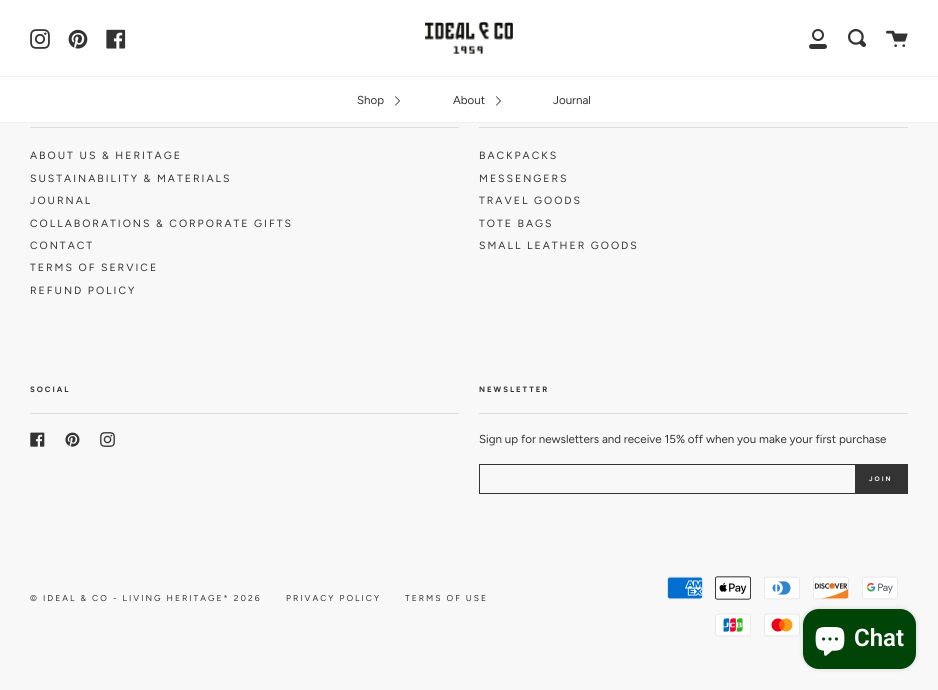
#include <cairo.h>
#include <math.h>
#include <stddef.h>


static void spaced_text(cairo_t *cr, double x, double y, const char *s, double letter, double word) {
    cairo_move_to(cr, x, y);
    while (*s) {
        char ch[5] = {0};
        int n = 0;
        do ch[n++] = *s++; while ((*s & 0xC0) == 0x80);
        cairo_show_text(cr, ch);
        cairo_rel_move_to(cr, letter + word * (*ch == ' '), 0);
    }
}

static void round_rect(cairo_t *cr, double x, double y, double w, double h, double r) {
    cairo_new_sub_path(cr);
    cairo_arc(cr, x + w - r, y + h - r, r, 0, M_PI / 2);
    cairo_arc(cr, x + r, y + h - r, r, M_PI / 2, M_PI);
    cairo_arc(cr, x + r, y + r, r, M_PI, 1.5 * M_PI);
    cairo_arc(cr, x + w - r, y + r, r, 1.5 * M_PI, 2 * M_PI);
    cairo_close_path(cr);
}

static void shadow(cairo_t *cr, double x, double y, double w, double h, double r, double blur, double alpha) {
    cairo_push_group_with_content(cr, CAIRO_CONTENT_ALPHA);
    cairo_set_operator(cr, CAIRO_OPERATOR_SOURCE);
    for (int i = 15; i >= -15 && fmin(w, h) + blur * i / 3 > 0; i -= 2) {
        double e = blur * i / 6;
        cairo_set_source_rgba(cr, 0, 0, 0, alpha * erfc((i - 1) / 8.5) / 2);
        round_rect(cr, x - e, y - e, w + 2 * e, h + 2 * e, fmax(0, fmin(r + e + blur * .6, fmin(w, h) / 2 + e)));
        cairo_fill(cr);
    }
    cairo_pattern_t *soft = cairo_pop_group(cr);
    cairo_mask(cr, soft);
    cairo_pattern_destroy(soft);
}

static void picture(cairo_t *cr, const char *path, double x, double y, double w, double h) {
    cairo_surface_t *image = cairo_image_surface_create_from_png(path);
    cairo_save(cr);
    cairo_set_source_surface(cr, image, x, y);
    cairo_rectangle(cr, x, y, w, h);
    cairo_fill(cr);
    cairo_restore(cr);
    cairo_surface_destroy(image);
}

int main(void) {
    cairo_surface_t *surface = cairo_image_surface_create(CAIRO_FORMAT_RGB24, 938, 690);
    cairo_t *cr = cairo_create(surface);
    cairo_font_options_t *options = cairo_font_options_create();
    cairo_font_options_set_hint_metrics(options, CAIRO_HINT_METRICS_OFF);
    cairo_font_options_set_hint_style(options, CAIRO_HINT_STYLE_NONE);
    cairo_set_font_options(cr, options);
    cairo_set_miter_limit(cr, 4);
    cairo_set_source_rgb(cr, 0.969, 0.969, 0.969);
    cairo_paint(cr);
    cairo_set_source_rgb(cr, 1, 1, 1);
    cairo_rectangle(cr, 0, 0, 938, 76);
    cairo_fill(cr);
    picture(cr, "img1.png", 30, 29, 20, 20);
    picture(cr, "img2.png", 68, 29, 20, 20);
    picture(cr, "img3.png", 106, 29, 20, 20);
    picture(cr, "img4.png", 425, 22, 88, 32);
    picture(cr, "img5.png", 809, 29, 18, 20);
    picture(cr, "img6.png", 848, 29, 18, 18);
    picture(cr, "img7.png", 886, 30, 22, 17);
    cairo_rectangle(cr, 0, 77, 938, 45);
    cairo_fill(cr);
    cairo_set_source_rgb(cr, 0.941, 0.941, 0.941);
    cairo_rectangle(cr, 0, 76, 938, 1);
    cairo_fill(cr);
    cairo_rectangle(cr, 0, 122, 938, 1);
    cairo_fill(cr);
    cairo_select_font_face(cr, "Figtree", CAIRO_FONT_SLANT_NORMAL, CAIRO_FONT_WEIGHT_NORMAL);
    cairo_set_font_size(cr, 11.55);
    cairo_set_source_rgb(cr, 0.2, 0.2, 0.2);
    cairo_move_to(cr, 357, 104);
    cairo_show_text(cr, "Shop");
    picture(cr, "img8.png", 395, 96, 5, 10);
    cairo_move_to(cr, 453, 104);
    cairo_show_text(cr, "About");
    picture(cr, "img8.png", 496, 96, 5, 10);
    cairo_move_to(cr, 553, 104);
    cairo_show_text(cr, "Journal");
    cairo_set_source_rgb(cr, 0.871, 0.871, 0.871);
    cairo_rectangle(cr, 30, 127, 429, 1);
    cairo_fill(cr);
    cairo_set_font_size(cr, 10.5);
    cairo_set_source_rgb(cr, 0.2, 0.2, 0.2);
    spaced_text(cr, 30, 159, "ABOUT US & HERITAGE", 2, 0);
    spaced_text(cr, 30, 182, "SUSTAINABILITY & MATERIALS", 2, 0);
    spaced_text(cr, 30, 204, "JOURNAL", 2, 0);
    spaced_text(cr, 30, 227, "COLLABORATIONS & CORPORATE GIFTS", 2, 0);
    spaced_text(cr, 30, 249, "CONTACT", 2, 0);
    spaced_text(cr, 30, 271, "TERMS OF SERVICE", 2, 0);
    spaced_text(cr, 30, 294, "REFUND POLICY", 2, 0);
    cairo_set_source_rgb(cr, 0.871, 0.871, 0.871);
    cairo_rectangle(cr, 479, 127, 429, 1);
    cairo_fill(cr);
    cairo_set_source_rgb(cr, 0.2, 0.2, 0.2);
    spaced_text(cr, 479, 159, "BACKPACKS", 2, 0);
    spaced_text(cr, 479, 182, "MESSENGERS", 2, 0);
    spaced_text(cr, 479, 204, "TRAVEL GOODS", 2, 0);
    spaced_text(cr, 479, 227, "TOTE BAGS", 2, 0);
    spaced_text(cr, 479, 249, "SMALL LEATHER GOODS", 2, 0);
    cairo_select_font_face(cr, "Figtree", CAIRO_FONT_SLANT_NORMAL, CAIRO_FONT_WEIGHT_BOLD);
    cairo_set_font_size(cr, 7.75);
    spaced_text(cr, 30, 392, "SOCIAL", 2, 0);
    cairo_set_source_rgb(cr, 0.871, 0.871, 0.871);
    cairo_rectangle(cr, 30, 413, 429, 1);
    cairo_fill(cr);
    picture(cr, "img9.png", 30, 432, 15, 15);
    picture(cr, "img10.png", 65, 432, 15, 15);
    picture(cr, "img11.png", 100, 432, 15, 15);
    cairo_set_source_rgb(cr, 0.2, 0.2, 0.2);
    spaced_text(cr, 479, 392, "NEWSLETTER", 2, 0);
    cairo_set_source_rgb(cr, 0.871, 0.871, 0.871);
    cairo_rectangle(cr, 479, 413, 429, 1);
    cairo_fill(cr);
    cairo_select_font_face(cr, "Figtree", CAIRO_FONT_SLANT_NORMAL, CAIRO_FONT_WEIGHT_NORMAL);
    cairo_set_font_size(cr, 11.55);
    cairo_set_source_rgb(cr, 0.2, 0.2, 0.2);
    cairo_move_to(cr, 479, 443);
    cairo_show_text(cr, "Sign up for newsletters and receive 15% off when you make your first purchase");
    cairo_rectangle(cr, 479.5, 464.5, 428, 29);
    cairo_set_line_width(cr, 1);
    cairo_stroke(cr);
    cairo_rectangle(cr, 855, 465, 52, 28);
    cairo_fill(cr);
    cairo_select_font_face(cr, "Figtree", CAIRO_FONT_SLANT_NORMAL, CAIRO_FONT_WEIGHT_BOLD);
    cairo_set_font_size(cr, 6.5);
    cairo_set_source_rgb(cr, 0.969, 0.969, 0.969);
    spaced_text(cr, 869, 481, "JOIN", 2, 0);
    cairo_select_font_face(cr, "Figtree", CAIRO_FONT_SLANT_NORMAL, CAIRO_FONT_WEIGHT_NORMAL);
    cairo_set_font_size(cr, 8.5);
    cairo_set_source_rgb(cr, 0.2, 0.2, 0.2);
    spaced_text(cr, 30, 601, "© IDEAL & CO - LIVING HERITAGE* 2026", 2, 0);
    spaced_text(cr, 286, 601, "PRIVACY POLICY", 2, 0);
    spaced_text(cr, 405, 601, "TERMS OF USE", 2, 0);
    picture(cr, "img12.png", 667, 576, 36, 24);
    picture(cr, "img13.png", 715, 576, 36, 24);
    picture(cr, "img14.png", 764, 576, 36, 24);
    picture(cr, "img15.png", 813, 576, 36, 24);
    picture(cr, "img16.png", 862, 576, 36, 24);
    picture(cr, "img17.png", 715, 613, 36, 24);
    picture(cr, "img18.png", 764, 613, 36, 24);
    cairo_set_source_rgb(cr, 0, 0, 0);
    shadow(cr, 803, 609, 113, 60, 16, 2.5, 0.15);
    cairo_set_source_rgb(cr, 0, 0.271, 0.031);
    round_rect(cr, 803, 609, 113, 60, 16);
    cairo_fill(cr);
    picture(cr, "img19.png", 815, 627, 30, 29);
    cairo_select_font_face(cr, "Roboto SemiBold", CAIRO_FONT_SLANT_NORMAL, CAIRO_FONT_WEIGHT_NORMAL);
    cairo_set_font_size(cr, 24);
    cairo_set_source_rgb(cr, 1, 1, 1);
    cairo_move_to(cr, 854, 646);
    cairo_show_text(cr, "Chat");
    cairo_surface_write_to_png(surface, "page.png");
    cairo_font_options_destroy(options);
    cairo_destroy(cr);
    cairo_surface_destroy(surface);
    return 0;
}
